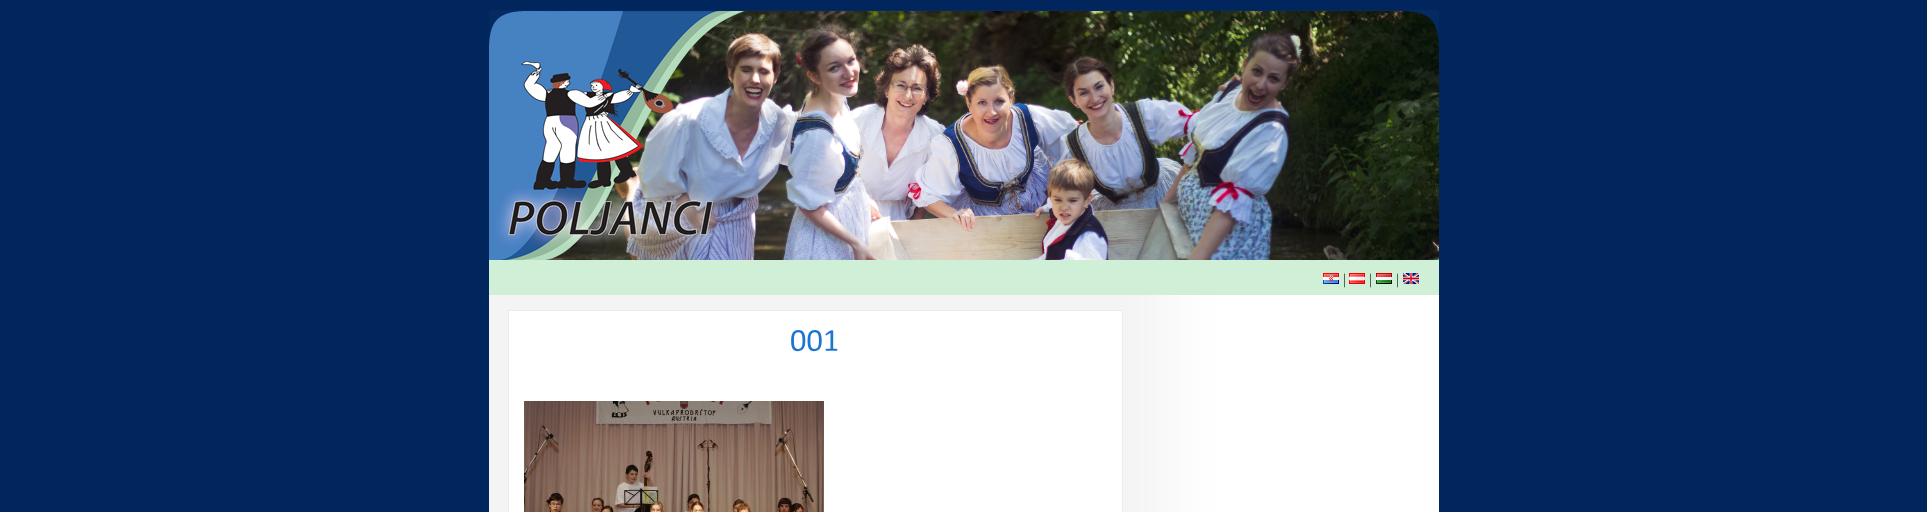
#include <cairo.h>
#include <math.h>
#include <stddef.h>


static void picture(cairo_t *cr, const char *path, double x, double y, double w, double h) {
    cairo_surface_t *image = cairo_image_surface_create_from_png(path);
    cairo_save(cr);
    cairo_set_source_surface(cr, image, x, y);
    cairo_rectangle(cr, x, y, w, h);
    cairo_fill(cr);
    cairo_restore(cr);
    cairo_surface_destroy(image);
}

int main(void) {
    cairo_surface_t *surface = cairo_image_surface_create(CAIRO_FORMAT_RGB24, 1927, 512);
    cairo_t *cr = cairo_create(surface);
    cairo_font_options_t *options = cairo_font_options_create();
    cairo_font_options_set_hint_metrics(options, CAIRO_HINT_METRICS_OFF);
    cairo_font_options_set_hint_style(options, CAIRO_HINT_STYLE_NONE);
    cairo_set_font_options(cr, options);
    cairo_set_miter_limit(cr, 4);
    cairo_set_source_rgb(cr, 0.004, 0.149, 0.365);
    cairo_paint(cr);
    picture(cr, "img2.png", 545, 11, 894, 249);
    picture(cr, "img1.png", 489, 10, 950, 250);
    cairo_set_source_rgb(cr, 0.812, 0.937, 0.839);
    cairo_rectangle(cr, 489, 260, 950, 35);
    cairo_fill(cr);
    picture(cr, "img3.png", 1323, 273, 16, 11);
    cairo_select_font_face(cr, "Liberation Serif", CAIRO_FONT_SLANT_NORMAL, CAIRO_FONT_WEIGHT_NORMAL);
    cairo_set_font_size(cr, 15);
    cairo_set_source_rgb(cr, 0.2, 0.2, 0.2);
    cairo_move_to(cr, 1343, 284);
    cairo_show_text(cr, "|");
    picture(cr, "img4.png", 1349, 273, 16, 11);
    cairo_move_to(cr, 1369, 284);
    cairo_show_text(cr, "|");
    picture(cr, "img5.png", 1376, 273, 16, 11);
    cairo_move_to(cr, 1396, 284);
    cairo_show_text(cr, "|");
    picture(cr, "img6.png", 1403, 273, 16, 11);
    picture(cr, "img7.png", 489, 295, 950, 217);
    cairo_set_source_rgb(cr, 1, 1, 1);
    cairo_rectangle(cr, 508.5, 310.5, 614, 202);
    cairo_fill_preserve(cr);
    cairo_set_source_rgb(cr, 0.922, 0.922, 0.922);
    cairo_set_line_width(cr, 1);
    cairo_stroke(cr);
    picture(cr, "img8.png", 791, 330, 47, 22);
    picture(cr, "img9.png", 524, 401, 300, 111);
    cairo_surface_write_to_png(surface, "page.png");
    cairo_font_options_destroy(options);
    cairo_destroy(cr);
    cairo_surface_destroy(surface);
    return 0;
}
